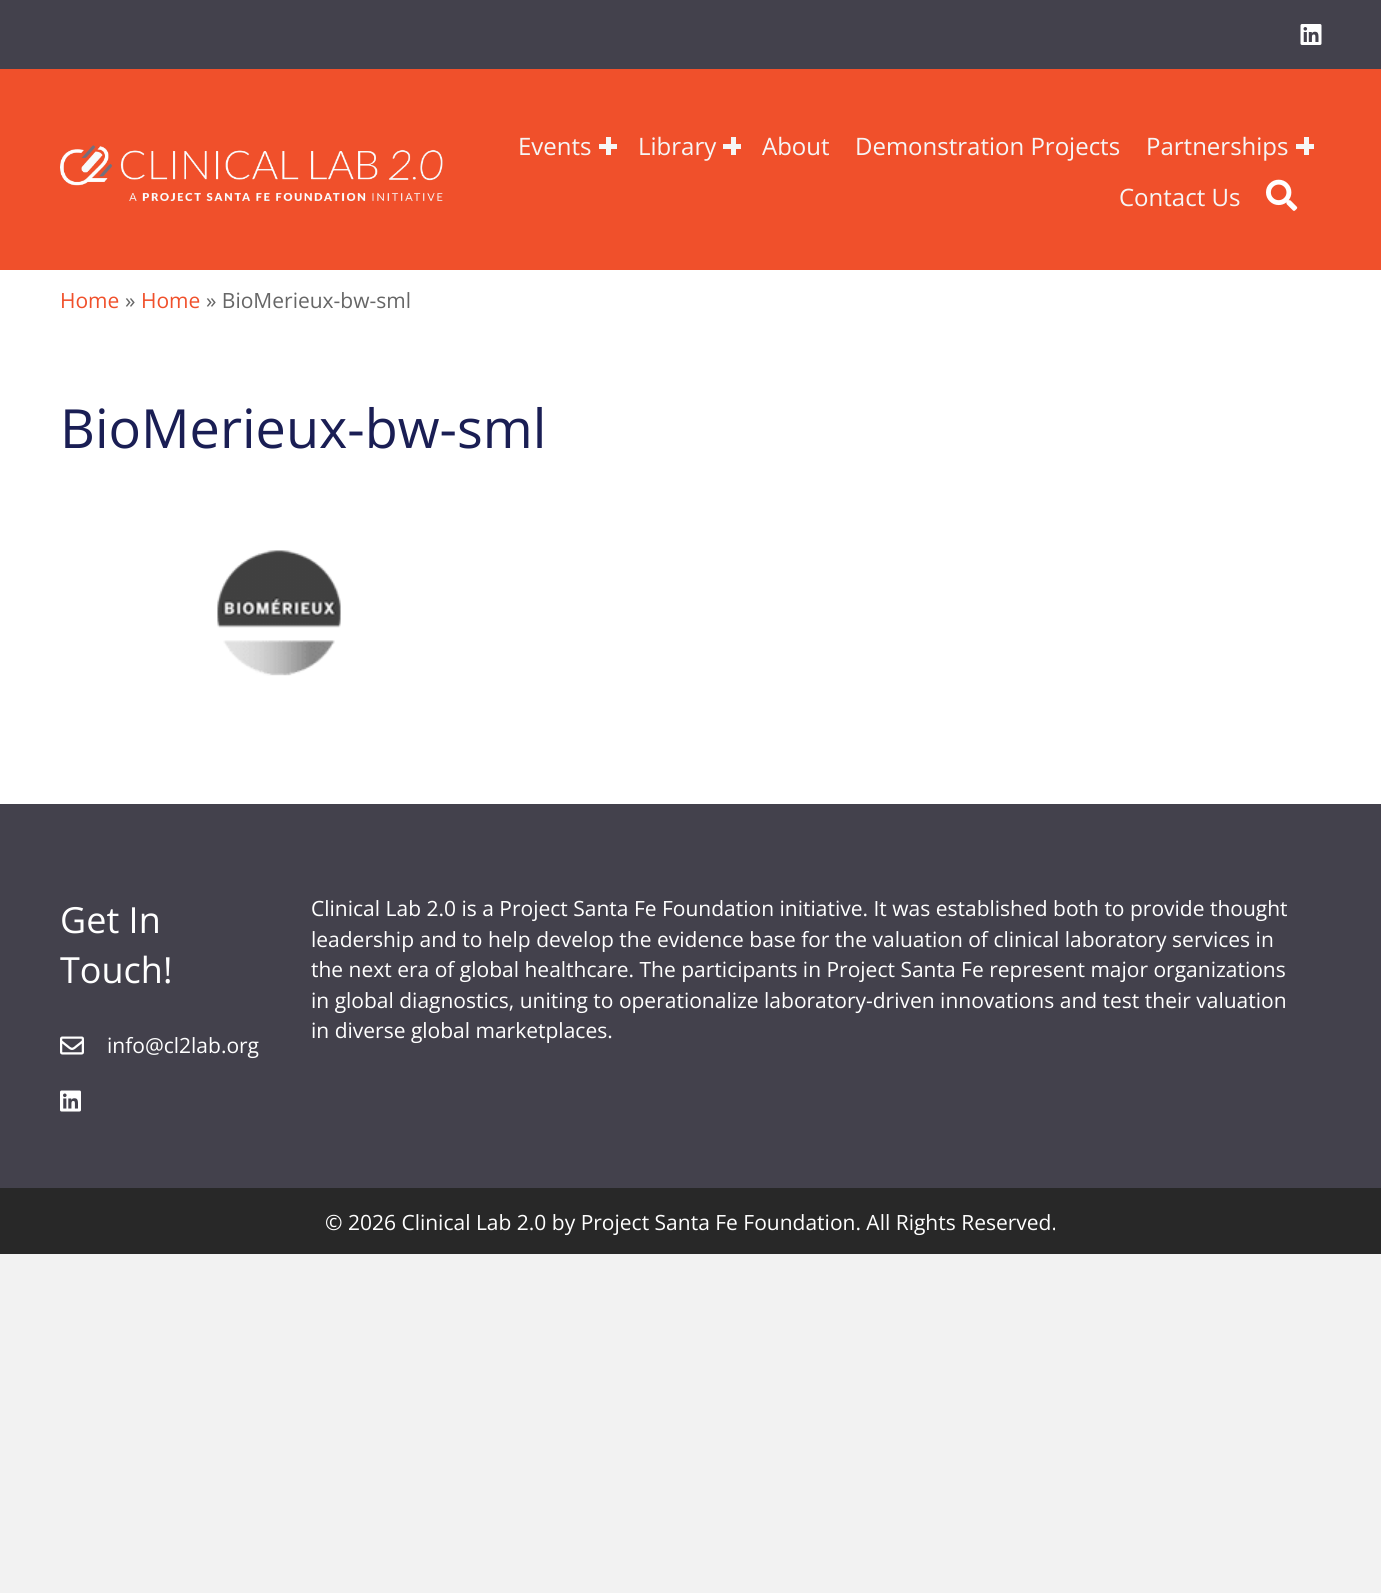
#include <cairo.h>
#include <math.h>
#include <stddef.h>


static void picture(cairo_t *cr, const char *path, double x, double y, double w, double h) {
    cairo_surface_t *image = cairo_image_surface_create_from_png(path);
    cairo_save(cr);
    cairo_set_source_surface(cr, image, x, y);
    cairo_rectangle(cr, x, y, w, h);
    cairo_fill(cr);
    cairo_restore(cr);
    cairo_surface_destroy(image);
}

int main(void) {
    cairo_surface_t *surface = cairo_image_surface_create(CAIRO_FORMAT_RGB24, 1381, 1593);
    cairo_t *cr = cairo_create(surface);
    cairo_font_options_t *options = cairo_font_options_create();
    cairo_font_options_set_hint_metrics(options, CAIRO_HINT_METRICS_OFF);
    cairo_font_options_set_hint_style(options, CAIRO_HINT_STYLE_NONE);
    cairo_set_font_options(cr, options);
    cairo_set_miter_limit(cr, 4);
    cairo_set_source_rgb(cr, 0.949, 0.949, 0.949);
    cairo_paint(cr);
    cairo_set_source_rgb(cr, 0.263, 0.255, 0.298);
    cairo_rectangle(cr, 0, 0, 1381, 69);
    cairo_fill(cr);
    picture(cr, "img1.png", 1300, 24, 22, 21);
    cairo_set_source_rgb(cr, 0.941, 0.314, 0.169);
    cairo_rectangle(cr, 0, 69, 1381, 201);
    cairo_fill(cr);
    picture(cr, "img2.png", 60, 145, 383, 56);
    cairo_select_font_face(cr, "Open Sans", CAIRO_FONT_SLANT_NORMAL, CAIRO_FONT_WEIGHT_NORMAL);
    cairo_set_font_size(cr, 24);
    cairo_set_source_rgb(cr, 0.961, 0.961, 0.961);
    cairo_move_to(cr, 518, 155);
    cairo_show_text(cr, "Events");
    cairo_rectangle(cr, 599, 144, 18, 5);
    cairo_fill(cr);
    cairo_rectangle(cr, 606, 137, 5, 18);
    cairo_fill(cr);
    cairo_move_to(cr, 638, 155);
    cairo_show_text(cr, "Library");
    cairo_rectangle(cr, 723, 144, 18, 5);
    cairo_fill(cr);
    cairo_rectangle(cr, 731, 137, 5, 18);
    cairo_fill(cr);
    cairo_move_to(cr, 762, 155);
    cairo_show_text(cr, "About");
    cairo_move_to(cr, 855, 155);
    cairo_show_text(cr, "Demonstration Projects");
    cairo_move_to(cr, 1146, 155);
    cairo_show_text(cr, "Partnerships");
    cairo_rectangle(cr, 1296, 144, 18, 5);
    cairo_fill(cr);
    cairo_rectangle(cr, 1304, 137, 5, 18);
    cairo_fill(cr);
    cairo_move_to(cr, 1119, 206);
    cairo_show_text(cr, "Contact Us");
    picture(cr, "img3.png", 1266, 179, 32, 32);
    cairo_set_source_rgb(cr, 1, 1, 1);
    cairo_rectangle(cr, 0, 270, 1381, 534);
    cairo_fill(cr);
    cairo_set_font_size(cr, 21);
    cairo_set_source_rgb(cr, 0.941, 0.314, 0.169);
    cairo_move_to(cr, 60, 308);
    cairo_show_text(cr, "Home");
    cairo_set_source_rgb(cr, 0.4, 0.4, 0.4);
    cairo_move_to(cr, 125, 308);
    cairo_show_text(cr, "»");
    cairo_set_source_rgb(cr, 0.941, 0.314, 0.169);
    cairo_move_to(cr, 141, 308);
    cairo_show_text(cr, "Home");
    cairo_set_source_rgb(cr, 0.4, 0.4, 0.4);
    cairo_move_to(cr, 206, 308);
    cairo_show_text(cr, "» BioMerieux-bw-sml");
    cairo_set_font_size(cr, 54);
    cairo_set_source_rgb(cr, 0.102, 0.118, 0.329);
    cairo_move_to(cr, 60, 448);
    cairo_show_text(cr, "BioMerieux-bw-sml");
    picture(cr, "img4.png", 217, 550, 124, 126);
    cairo_set_source_rgb(cr, 0.263, 0.255, 0.298);
    cairo_rectangle(cr, 0, 804, 1381, 384);
    cairo_fill(cr);
    cairo_set_font_size(cr, 36);
    cairo_set_source_rgb(cr, 1, 1, 1);
    cairo_move_to(cr, 60, 933);
    cairo_show_text(cr, "Get In");
    cairo_move_to(cr, 60, 983);
    cairo_show_text(cr, "Touch!");
    picture(cr, "img5.png", 60, 1036, 24, 19);
    cairo_set_font_size(cr, 21);
    cairo_move_to(cr, 107, 1053);
    cairo_show_text(cr, "info@cl2lab.org");
    picture(cr, "img6.png", 60, 1090, 21, 22);
    cairo_move_to(cr, 311, 916);
    cairo_show_text(cr, "Clinical Lab 2.0 is a Project Santa Fe Foundation initiative. It was established both to provide thought");
    cairo_move_to(cr, 311, 947);
    cairo_show_text(cr, "leadership and to help develop the evidence base for the valuation of clinical laboratory services in");
    cairo_move_to(cr, 311, 977);
    cairo_show_text(cr, "the next era of global healthcare. The participants in Project Santa Fe represent major organizations");
    cairo_move_to(cr, 311, 1008);
    cairo_show_text(cr, "in global diagnostics, uniting to operationalize laboratory-driven innovations and test their valuation");
    cairo_move_to(cr, 311, 1038);
    cairo_show_text(cr, "in diverse global marketplaces.");
    cairo_set_source_rgb(cr, 0.157, 0.157, 0.157);
    cairo_rectangle(cr, 0, 1188, 1381, 66);
    cairo_fill(cr);
    cairo_set_source_rgb(cr, 1, 1, 1);
    cairo_move_to(cr, 325, 1230);
    cairo_show_text(cr, "© 2026 Clinical Lab 2.0 by Project Santa Fe Foundation. All Rights Reserved.");
    cairo_surface_write_to_png(surface, "page.png");
    cairo_font_options_destroy(options);
    cairo_destroy(cr);
    cairo_surface_destroy(surface);
    return 0;
}
